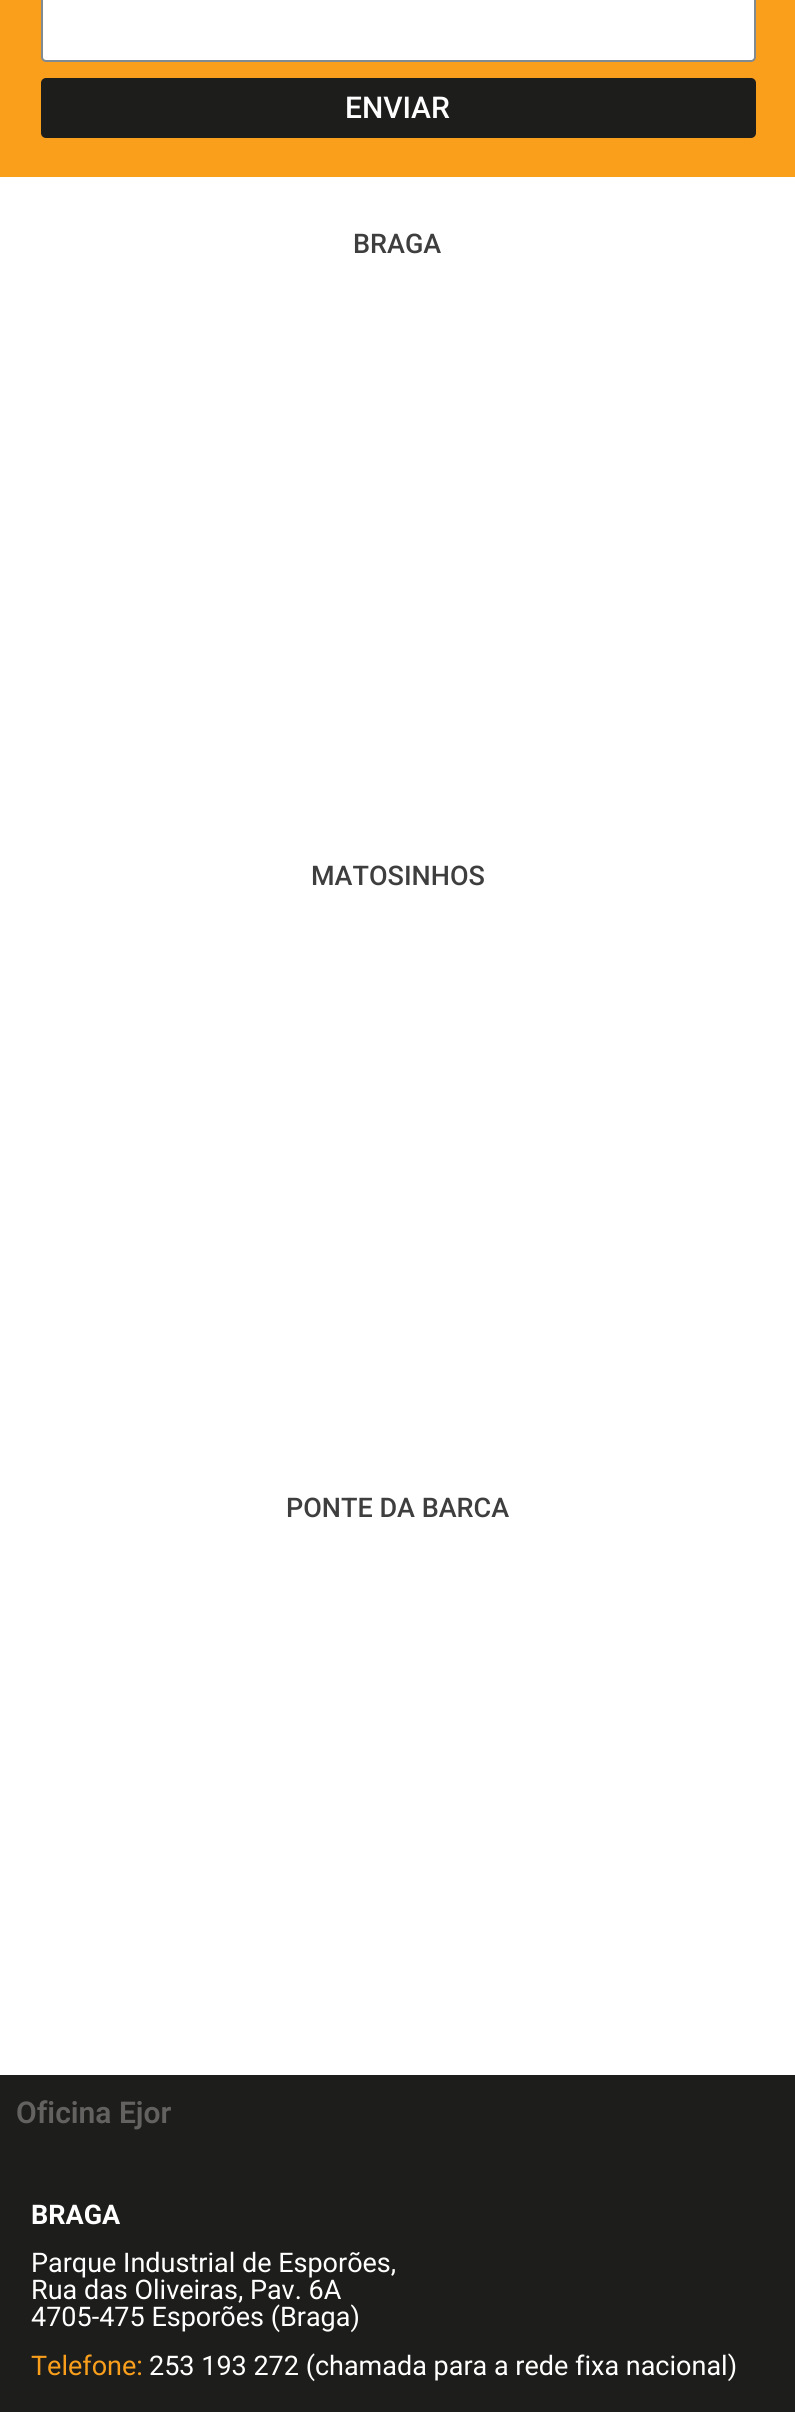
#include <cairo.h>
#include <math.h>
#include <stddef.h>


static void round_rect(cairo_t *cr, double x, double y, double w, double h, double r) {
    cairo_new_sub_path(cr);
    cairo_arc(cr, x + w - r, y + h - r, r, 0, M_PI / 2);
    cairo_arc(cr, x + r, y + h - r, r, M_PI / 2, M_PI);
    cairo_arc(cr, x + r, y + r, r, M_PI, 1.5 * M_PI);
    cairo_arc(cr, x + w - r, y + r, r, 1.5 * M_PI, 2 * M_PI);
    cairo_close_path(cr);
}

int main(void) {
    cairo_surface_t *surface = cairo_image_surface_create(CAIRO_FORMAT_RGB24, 795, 2412);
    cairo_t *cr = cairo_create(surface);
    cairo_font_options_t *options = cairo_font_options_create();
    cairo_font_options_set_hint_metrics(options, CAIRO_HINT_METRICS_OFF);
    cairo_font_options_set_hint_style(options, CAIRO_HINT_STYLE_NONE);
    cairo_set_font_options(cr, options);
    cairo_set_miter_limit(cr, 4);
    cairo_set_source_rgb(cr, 1, 1, 1);
    cairo_paint(cr);
    cairo_set_source_rgb(cr, 0.973, 0.624, 0.11);
    cairo_rectangle(cr, 0, 0, 795, 177);
    cairo_fill(cr);
    cairo_set_source_rgb(cr, 1, 1, 1);
    round_rect(cr, 42, -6, 713, 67, 4);
    cairo_fill_preserve(cr);
    cairo_set_source_rgb(cr, 0.506, 0.541, 0.569);
    cairo_stroke(cr);
    cairo_set_source_rgb(cr, 0.114, 0.114, 0.106);
    round_rect(cr, 41, 78, 715, 60, 5);
    cairo_fill(cr);
    cairo_select_font_face(cr, "Roboto Medium", CAIRO_FONT_SLANT_NORMAL, CAIRO_FONT_WEIGHT_NORMAL);
    cairo_set_font_size(cr, 30);
    cairo_set_source_rgb(cr, 1, 1, 1);
    cairo_move_to(cr, 345, 118);
    cairo_show_text(cr, "ENVIAR");
    cairo_set_font_size(cr, 27);
    cairo_set_source_rgb(cr, 0.243, 0.243, 0.243);
    cairo_move_to(cr, 353, 253);
    cairo_show_text(cr, "BRAGA");
    cairo_move_to(cr, 311, 885);
    cairo_show_text(cr, "MATOSINHOS");
    cairo_move_to(cr, 286, 1517);
    cairo_show_text(cr, "PONTE DA BARCA");
    cairo_set_source_rgb(cr, 0.114, 0.114, 0.106);
    cairo_rectangle(cr, 0, 2075, 795, 337);
    cairo_fill(cr);
    cairo_select_font_face(cr, "Roboto SemiBold", CAIRO_FONT_SLANT_NORMAL, CAIRO_FONT_WEIGHT_NORMAL);
    cairo_set_font_size(cr, 30);
    cairo_set_source_rgb(cr, 0.388, 0.384, 0.38);
    cairo_move_to(cr, 16, 2123);
    cairo_show_text(cr, "Oficina Ejor");
    cairo_select_font_face(cr, "Roboto", CAIRO_FONT_SLANT_NORMAL, CAIRO_FONT_WEIGHT_BOLD);
    cairo_set_font_size(cr, 27);
    cairo_set_source_rgb(cr, 1, 1, 1);
    cairo_move_to(cr, 31, 2224);
    cairo_show_text(cr, "BRAGA");
    cairo_select_font_face(cr, "Roboto", CAIRO_FONT_SLANT_NORMAL, CAIRO_FONT_WEIGHT_NORMAL);
    cairo_move_to(cr, 31, 2272);
    cairo_show_text(cr, "Parque Industrial de Esporões,");
    cairo_move_to(cr, 31, 2299);
    cairo_show_text(cr, "Rua das Oliveiras, Pav. 6A");
    cairo_move_to(cr, 31, 2326);
    cairo_show_text(cr, "4705-475 Esporões (Braga)");
    cairo_set_source_rgb(cr, 0.973, 0.624, 0.11);
    cairo_move_to(cr, 31, 2375);
    cairo_show_text(cr, "Telefone:");
    cairo_set_source_rgb(cr, 1, 1, 1);
    cairo_move_to(cr, 149, 2375);
    cairo_show_text(cr, "253 193 272 (chamada para a rede fixa nacional)");
    cairo_surface_write_to_png(surface, "page.png");
    cairo_font_options_destroy(options);
    cairo_destroy(cr);
    cairo_surface_destroy(surface);
    return 0;
}
